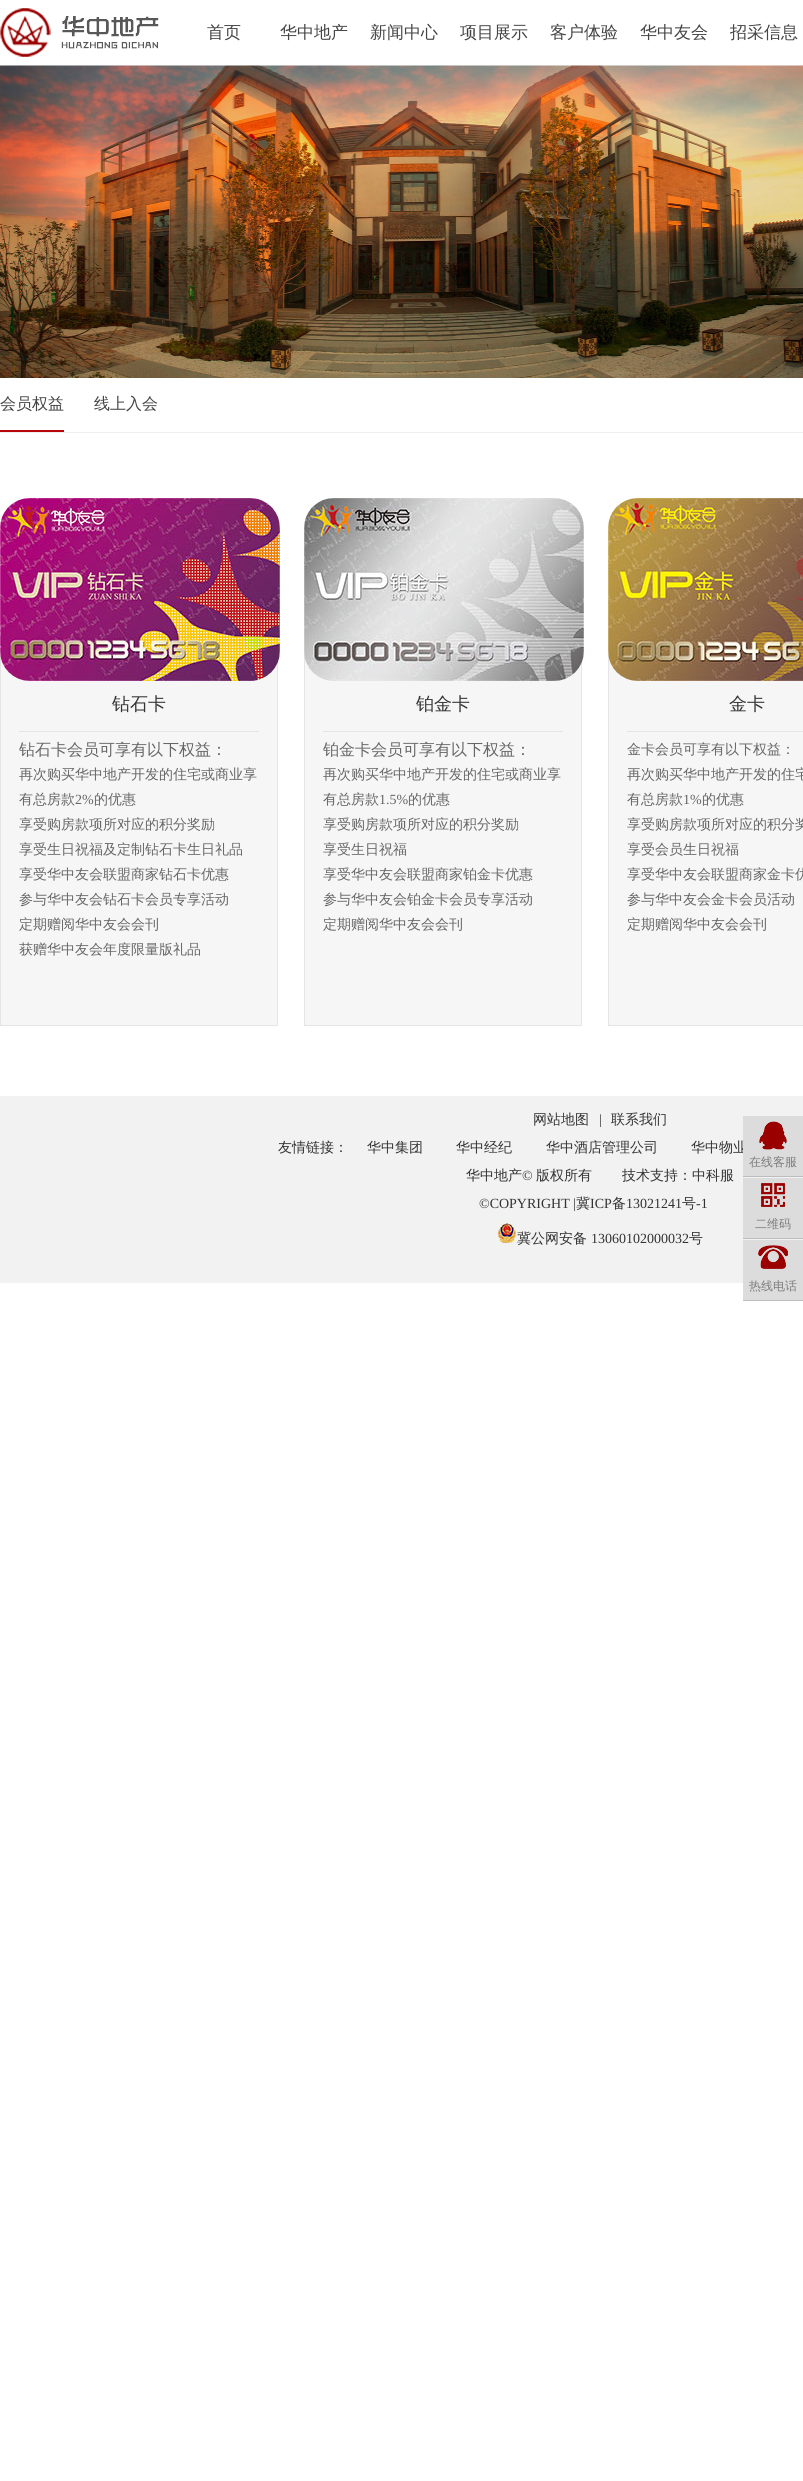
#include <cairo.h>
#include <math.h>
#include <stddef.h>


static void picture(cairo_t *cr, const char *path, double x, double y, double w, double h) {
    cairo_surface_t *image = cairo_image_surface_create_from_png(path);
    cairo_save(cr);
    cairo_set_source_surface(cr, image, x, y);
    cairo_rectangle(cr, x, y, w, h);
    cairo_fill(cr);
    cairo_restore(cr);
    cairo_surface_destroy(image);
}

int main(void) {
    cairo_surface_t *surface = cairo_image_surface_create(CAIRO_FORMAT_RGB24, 803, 2481);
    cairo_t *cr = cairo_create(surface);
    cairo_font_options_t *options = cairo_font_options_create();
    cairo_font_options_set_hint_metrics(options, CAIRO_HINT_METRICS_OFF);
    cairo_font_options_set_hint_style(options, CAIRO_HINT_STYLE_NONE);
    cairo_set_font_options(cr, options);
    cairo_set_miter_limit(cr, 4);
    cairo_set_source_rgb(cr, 1, 1, 1);
    cairo_paint(cr);
    picture(cr, "img1.png", 0, 8, 159, 49);
    cairo_select_font_face(cr, "WenQuanYi Zen Hei Medium", CAIRO_FONT_SLANT_NORMAL, CAIRO_FONT_WEIGHT_NORMAL);
    cairo_set_font_size(cr, 17);
    cairo_set_source_rgb(cr, 0.267, 0.267, 0.267);
    cairo_move_to(cr, 207, 38);
    cairo_show_text(cr, "首页");
    cairo_move_to(cr, 280, 38);
    cairo_show_text(cr, "华中地产");
    cairo_move_to(cr, 370, 38);
    cairo_show_text(cr, "新闻中心");
    cairo_move_to(cr, 460, 38);
    cairo_show_text(cr, "项目展示");
    cairo_move_to(cr, 550, 38);
    cairo_show_text(cr, "客户体验");
    cairo_move_to(cr, 640, 38);
    cairo_show_text(cr, "华中友会");
    cairo_move_to(cr, 730, 38);
    cairo_show_text(cr, "招采信息");
    picture(cr, "img2.png", 0, 65, 803, 313);
    cairo_set_source_rgb(cr, 0.933, 0.933, 0.933);
    cairo_rectangle(cr, 0, 432, 803, 1);
    cairo_fill(cr);
    cairo_set_source_rgb(cr, 0.718, 0.024, 0.039);
    cairo_rectangle(cr, 0, 430, 64, 2);
    cairo_fill(cr);
    cairo_set_font_size(cr, 16);
    cairo_set_source_rgb(cr, 0.267, 0.267, 0.267);
    cairo_move_to(cr, 0, 409);
    cairo_show_text(cr, "会员权益");
    cairo_move_to(cr, 94, 409);
    cairo_show_text(cr, "线上入会");
    cairo_set_source_rgb(cr, 0.961, 0.961, 0.961);
    cairo_rectangle(cr, 1, 658, 276, 367);
    cairo_fill(cr);
    cairo_rectangle(cr, 0.5, 651.5, 277, 374);
    cairo_set_source_rgb(cr, 0.898, 0.898, 0.898);
    cairo_set_line_width(cr, 1);
    cairo_stroke(cr);
    picture(cr, "img3.png", 0, 498, 280, 183);
    cairo_set_font_size(cr, 18);
    cairo_set_source_rgb(cr, 0.2, 0.2, 0.2);
    cairo_move_to(cr, 112, 710);
    cairo_show_text(cr, "钻石卡");
    cairo_set_source_rgb(cr, 0.898, 0.898, 0.898);
    cairo_rectangle(cr, 19, 731, 240, 1);
    cairo_fill(cr);
    cairo_set_font_size(cr, 16);
    cairo_set_source_rgb(cr, 0.4, 0.4, 0.4);
    cairo_move_to(cr, 19, 755);
    cairo_show_text(cr, "钻石卡会员可享有以下权益：");
    cairo_set_font_size(cr, 14);
    cairo_move_to(cr, 19, 779);
    cairo_show_text(cr, "再次购买华中地产开发的住宅或商业享");
    cairo_move_to(cr, 19, 804);
    cairo_show_text(cr, "有总房款");
    cairo_select_font_face(cr, "Liberation Serif", CAIRO_FONT_SLANT_NORMAL, CAIRO_FONT_WEIGHT_NORMAL);
    cairo_move_to(cr, 75, 804);
    cairo_show_text(cr, "2%");
    cairo_select_font_face(cr, "WenQuanYi Zen Hei Medium", CAIRO_FONT_SLANT_NORMAL, CAIRO_FONT_WEIGHT_NORMAL);
    cairo_move_to(cr, 94, 804);
    cairo_show_text(cr, "的优惠");
    cairo_move_to(cr, 19, 829);
    cairo_show_text(cr, "享受购房款项所对应的积分奖励");
    cairo_move_to(cr, 19, 854);
    cairo_show_text(cr, "享受生日祝福及定制钻石卡生日礼品");
    cairo_move_to(cr, 19, 879);
    cairo_show_text(cr, "享受华中友会联盟商家钻石卡优惠");
    cairo_move_to(cr, 19, 904);
    cairo_show_text(cr, "参与华中友会钻石卡会员专享活动");
    cairo_move_to(cr, 19, 929);
    cairo_show_text(cr, "定期赠阅华中友会会刊");
    cairo_move_to(cr, 19, 954);
    cairo_show_text(cr, "获赠华中友会年度限量版礼品");
    cairo_set_source_rgb(cr, 0.961, 0.961, 0.961);
    cairo_rectangle(cr, 305, 658, 276, 367);
    cairo_fill(cr);
    cairo_rectangle(cr, 304.5, 651.5, 277, 374);
    cairo_set_source_rgb(cr, 0.898, 0.898, 0.898);
    cairo_stroke(cr);
    picture(cr, "img4.png", 304, 498, 280, 183);
    cairo_set_font_size(cr, 18);
    cairo_set_source_rgb(cr, 0.2, 0.2, 0.2);
    cairo_move_to(cr, 416, 710);
    cairo_show_text(cr, "铂金卡");
    cairo_set_source_rgb(cr, 0.898, 0.898, 0.898);
    cairo_rectangle(cr, 323, 731, 240, 1);
    cairo_fill(cr);
    cairo_set_font_size(cr, 16);
    cairo_set_source_rgb(cr, 0.4, 0.4, 0.4);
    cairo_move_to(cr, 323, 755);
    cairo_show_text(cr, "铂金卡会员可享有以下权益：");
    cairo_set_font_size(cr, 14);
    cairo_move_to(cr, 323, 779);
    cairo_show_text(cr, "再次购买华中地产开发的住宅或商业享");
    cairo_move_to(cr, 323, 804);
    cairo_show_text(cr, "有总房款");
    cairo_select_font_face(cr, "Liberation Serif", CAIRO_FONT_SLANT_NORMAL, CAIRO_FONT_WEIGHT_NORMAL);
    cairo_move_to(cr, 379, 804);
    cairo_show_text(cr, "1.5%");
    cairo_select_font_face(cr, "WenQuanYi Zen Hei Medium", CAIRO_FONT_SLANT_NORMAL, CAIRO_FONT_WEIGHT_NORMAL);
    cairo_move_to(cr, 408, 804);
    cairo_show_text(cr, "的优惠");
    cairo_move_to(cr, 323, 829);
    cairo_show_text(cr, "享受购房款项所对应的积分奖励");
    cairo_move_to(cr, 323, 854);
    cairo_show_text(cr, "享受生日祝福");
    cairo_move_to(cr, 323, 879);
    cairo_show_text(cr, "享受华中友会联盟商家铂金卡优惠");
    cairo_move_to(cr, 323, 904);
    cairo_show_text(cr, "参与华中友会铂金卡会员专享活动");
    cairo_move_to(cr, 323, 929);
    cairo_show_text(cr, "定期赠阅华中友会会刊");
    cairo_set_source_rgb(cr, 0.961, 0.961, 0.961);
    cairo_rectangle(cr, 609, 658, 194, 367);
    cairo_fill(cr);
    cairo_rectangle(cr, 608.5, 651.5, 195, 374);
    cairo_set_source_rgb(cr, 0.898, 0.898, 0.898);
    cairo_stroke(cr);
    picture(cr, "img5.png", 608, 498, 195, 183);
    cairo_set_font_size(cr, 18);
    cairo_set_source_rgb(cr, 0.2, 0.2, 0.2);
    cairo_move_to(cr, 729, 710);
    cairo_show_text(cr, "金卡");
    cairo_set_source_rgb(cr, 0.898, 0.898, 0.898);
    cairo_rectangle(cr, 627, 731, 176, 1);
    cairo_fill(cr);
    cairo_set_font_size(cr, 14);
    cairo_set_source_rgb(cr, 0.4, 0.4, 0.4);
    cairo_move_to(cr, 627, 754);
    cairo_show_text(cr, "金卡会员可享有以下权益：");
    cairo_move_to(cr, 627, 779);
    cairo_show_text(cr, "再次购买华中地产开发的住宅");
    cairo_move_to(cr, 627, 804);
    cairo_show_text(cr, "有总房款");
    cairo_select_font_face(cr, "Liberation Serif", CAIRO_FONT_SLANT_NORMAL, CAIRO_FONT_WEIGHT_NORMAL);
    cairo_move_to(cr, 683, 804);
    cairo_show_text(cr, "1%");
    cairo_select_font_face(cr, "WenQuanYi Zen Hei Medium", CAIRO_FONT_SLANT_NORMAL, CAIRO_FONT_WEIGHT_NORMAL);
    cairo_move_to(cr, 702, 804);
    cairo_show_text(cr, "的优惠");
    cairo_move_to(cr, 627, 829);
    cairo_show_text(cr, "享受购房款项所对应的积分奖");
    cairo_move_to(cr, 627, 854);
    cairo_show_text(cr, "享受会员生日祝福");
    cairo_move_to(cr, 627, 879);
    cairo_show_text(cr, "享受华中友会联盟商家金卡优");
    cairo_move_to(cr, 627, 904);
    cairo_show_text(cr, "参与华中友会金卡会员活动");
    cairo_move_to(cr, 627, 929);
    cairo_show_text(cr, "定期赠阅华中友会会刊");
    cairo_set_source_rgb(cr, 0.949, 0.949, 0.949);
    cairo_rectangle(cr, 0, 1096, 803, 187);
    cairo_fill(cr);
    cairo_set_source_rgb(cr, 0.2, 0.2, 0.2);
    cairo_move_to(cr, 533, 1124);
    cairo_show_text(cr, "网站地图");
    cairo_select_font_face(cr, "Liberation Serif", CAIRO_FONT_SLANT_NORMAL, CAIRO_FONT_WEIGHT_NORMAL);
    cairo_move_to(cr, 599, 1124);
    cairo_show_text(cr, "|");
    cairo_select_font_face(cr, "WenQuanYi Zen Hei Medium", CAIRO_FONT_SLANT_NORMAL, CAIRO_FONT_WEIGHT_NORMAL);
    cairo_move_to(cr, 611, 1124);
    cairo_show_text(cr, "联系我们");
    cairo_move_to(cr, 278, 1152);
    cairo_show_text(cr, "友情链接：");
    cairo_move_to(cr, 367, 1152);
    cairo_show_text(cr, "华中集团");
    cairo_move_to(cr, 456, 1152);
    cairo_show_text(cr, "华中经纪");
    cairo_move_to(cr, 546, 1152);
    cairo_show_text(cr, "华中酒店管理公司");
    cairo_move_to(cr, 691, 1152);
    cairo_show_text(cr, "华中物业");
    cairo_move_to(cr, 466, 1180);
    cairo_show_text(cr, "华中地产");
    cairo_select_font_face(cr, "Liberation Serif", CAIRO_FONT_SLANT_NORMAL, CAIRO_FONT_WEIGHT_NORMAL);
    cairo_move_to(cr, 522, 1180);
    cairo_show_text(cr, "©");
    cairo_select_font_face(cr, "WenQuanYi Zen Hei Medium", CAIRO_FONT_SLANT_NORMAL, CAIRO_FONT_WEIGHT_NORMAL);
    cairo_move_to(cr, 536, 1180);
    cairo_show_text(cr, "版权所有");
    cairo_move_to(cr, 622, 1180);
    cairo_show_text(cr, "技术支持：中科服");
    cairo_select_font_face(cr, "Liberation Serif", CAIRO_FONT_SLANT_NORMAL, CAIRO_FONT_WEIGHT_NORMAL);
    cairo_move_to(cr, 479, 1208);
    cairo_show_text(cr, "©COPYRIGHT |");
    cairo_select_font_face(cr, "WenQuanYi Zen Hei Medium", CAIRO_FONT_SLANT_NORMAL, CAIRO_FONT_WEIGHT_NORMAL);
    cairo_move_to(cr, 576, 1208);
    cairo_show_text(cr, "冀");
    cairo_select_font_face(cr, "Liberation Serif", CAIRO_FONT_SLANT_NORMAL, CAIRO_FONT_WEIGHT_NORMAL);
    cairo_move_to(cr, 590, 1208);
    cairo_show_text(cr, "ICP");
    cairo_select_font_face(cr, "WenQuanYi Zen Hei Medium", CAIRO_FONT_SLANT_NORMAL, CAIRO_FONT_WEIGHT_NORMAL);
    cairo_move_to(cr, 612, 1208);
    cairo_show_text(cr, "备");
    cairo_select_font_face(cr, "Liberation Serif", CAIRO_FONT_SLANT_NORMAL, CAIRO_FONT_WEIGHT_NORMAL);
    cairo_move_to(cr, 626, 1208);
    cairo_show_text(cr, "13021241");
    cairo_select_font_face(cr, "WenQuanYi Zen Hei Medium", CAIRO_FONT_SLANT_NORMAL, CAIRO_FONT_WEIGHT_NORMAL);
    cairo_move_to(cr, 682, 1208);
    cairo_show_text(cr, "号");
    cairo_select_font_face(cr, "Liberation Serif", CAIRO_FONT_SLANT_NORMAL, CAIRO_FONT_WEIGHT_NORMAL);
    cairo_move_to(cr, 696, 1208);
    cairo_show_text(cr, "-1");
    picture(cr, "img6.png", 498, 1223, 18, 20);
    cairo_select_font_face(cr, "WenQuanYi Zen Hei Medium", CAIRO_FONT_SLANT_NORMAL, CAIRO_FONT_WEIGHT_NORMAL);
    cairo_move_to(cr, 517, 1243);
    cairo_show_text(cr, "冀公网安备");
    cairo_select_font_face(cr, "Liberation Serif", CAIRO_FONT_SLANT_NORMAL, CAIRO_FONT_WEIGHT_NORMAL);
    cairo_move_to(cr, 591, 1243);
    cairo_show_text(cr, "13060102000032");
    cairo_select_font_face(cr, "WenQuanYi Zen Hei Medium", CAIRO_FONT_SLANT_NORMAL, CAIRO_FONT_WEIGHT_NORMAL);
    cairo_move_to(cr, 689, 1243);
    cairo_show_text(cr, "号");
    cairo_set_source_rgb(cr, 0.863, 0.863, 0.863);
    cairo_rectangle(cr, 743, 1116, 60, 60);
    cairo_fill(cr);
    picture(cr, "img7.png", 759, 1121, 28, 29);
    cairo_set_source_rgb(cr, 0.741, 0.741, 0.741);
    cairo_rectangle(cr, 743, 1176, 60, 1);
    cairo_fill(cr);
    cairo_set_font_size(cr, 12);
    cairo_set_source_rgb(cr, 0.486, 0.486, 0.486);
    cairo_move_to(cr, 749, 1166);
    cairo_show_text(cr, "在线客服");
    cairo_set_source_rgb(cr, 0.863, 0.863, 0.863);
    cairo_rectangle(cr, 743, 1178, 60, 60);
    cairo_fill(cr);
    picture(cr, "img8.png", 761, 1183, 24, 24);
    cairo_set_source_rgb(cr, 0.741, 0.741, 0.741);
    cairo_rectangle(cr, 743, 1238, 60, 1);
    cairo_fill(cr);
    cairo_set_source_rgb(cr, 0.486, 0.486, 0.486);
    cairo_move_to(cr, 755, 1228);
    cairo_show_text(cr, "二维码");
    cairo_set_source_rgb(cr, 0.863, 0.863, 0.863);
    cairo_rectangle(cr, 743, 1240, 60, 60);
    cairo_fill(cr);
    picture(cr, "img9.png", 758, 1245, 30, 24);
    cairo_set_source_rgb(cr, 0.741, 0.741, 0.741);
    cairo_rectangle(cr, 743, 1300, 60, 1);
    cairo_fill(cr);
    cairo_set_source_rgb(cr, 0.486, 0.486, 0.486);
    cairo_move_to(cr, 749, 1290);
    cairo_show_text(cr, "热线电话");
    cairo_surface_write_to_png(surface, "page.png");
    cairo_font_options_destroy(options);
    cairo_destroy(cr);
    cairo_surface_destroy(surface);
    return 0;
}
